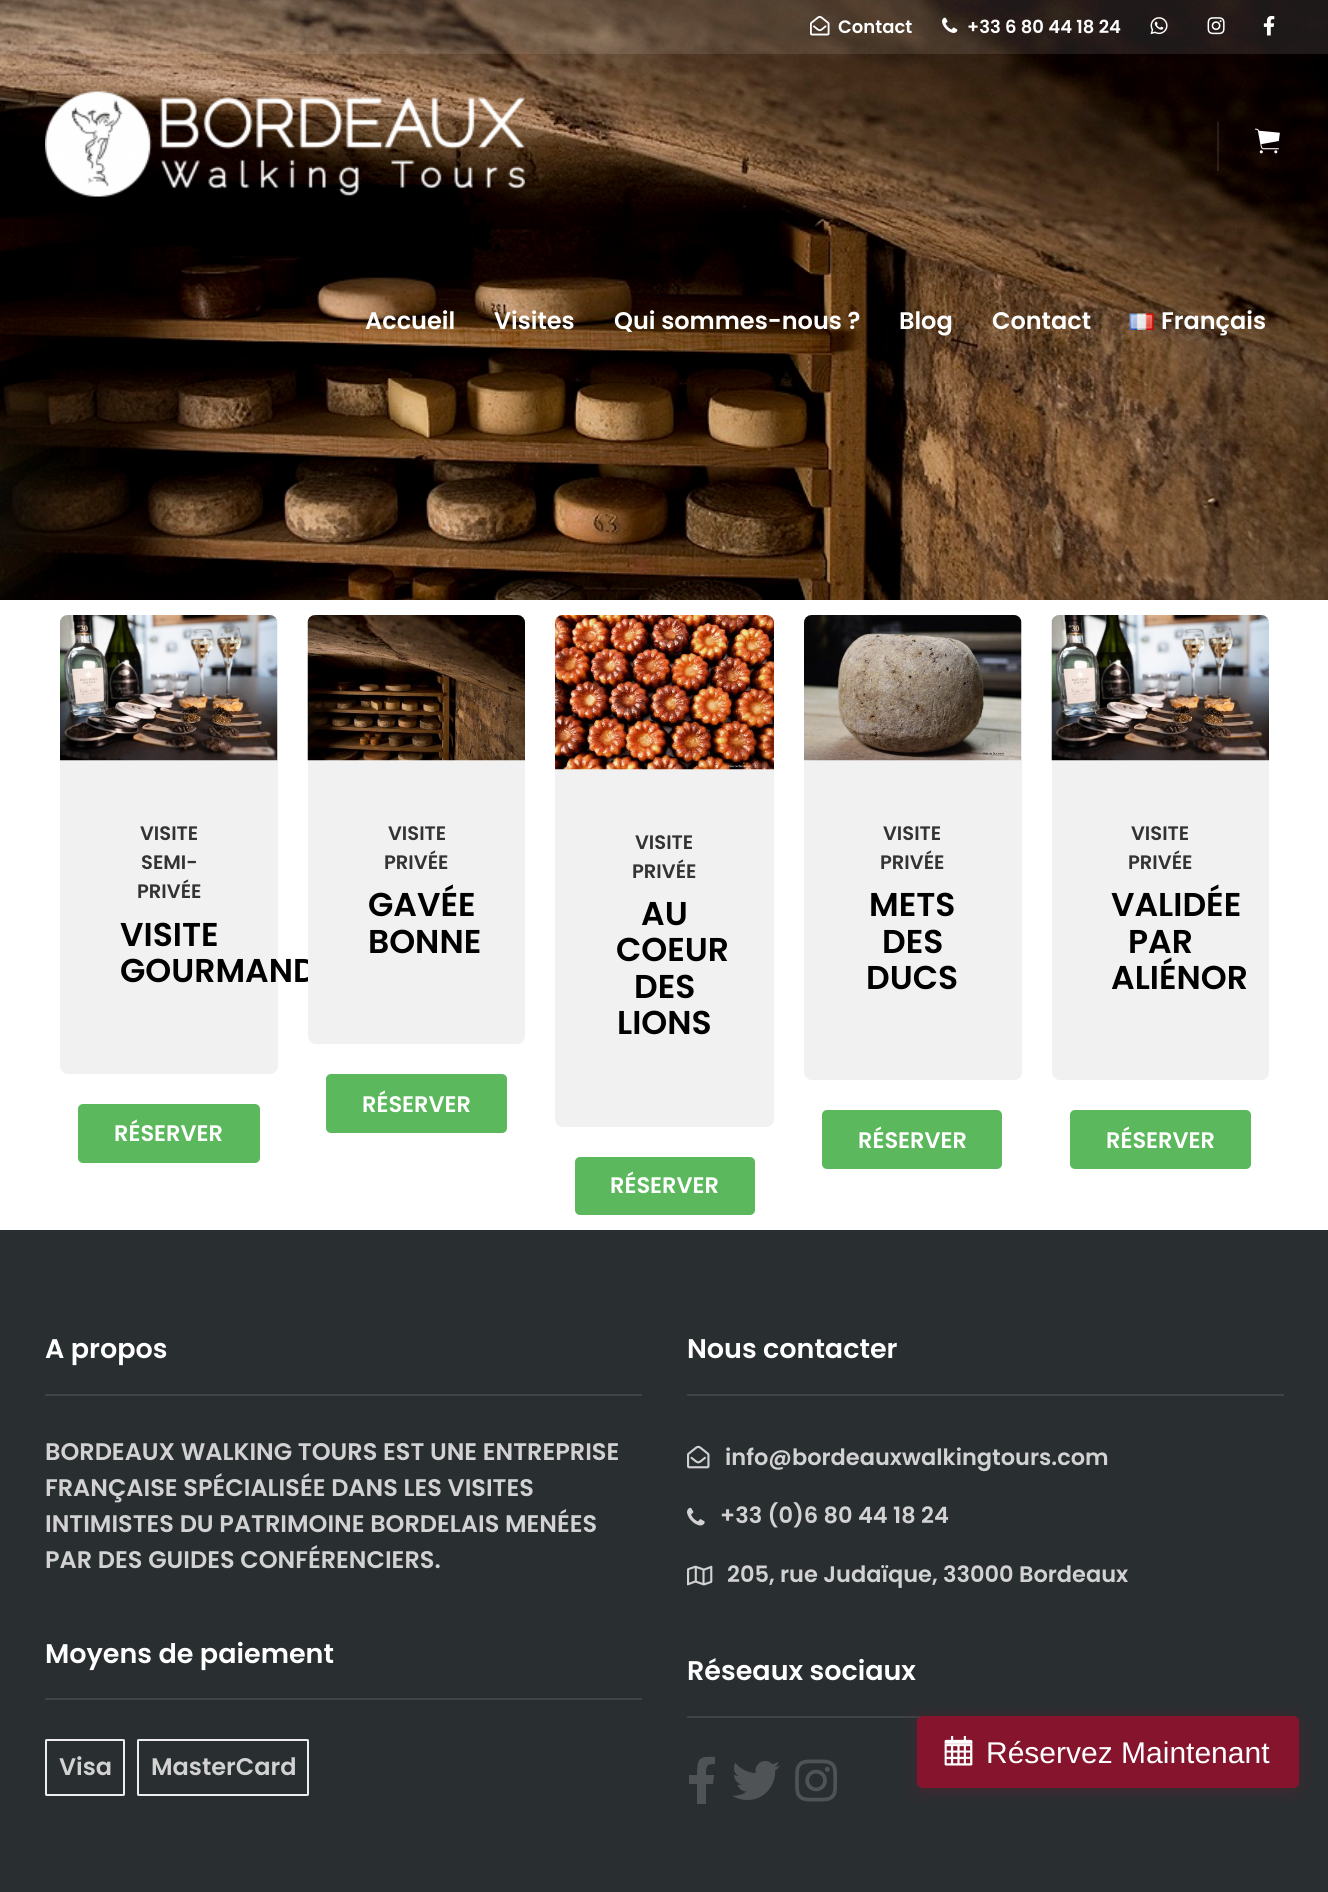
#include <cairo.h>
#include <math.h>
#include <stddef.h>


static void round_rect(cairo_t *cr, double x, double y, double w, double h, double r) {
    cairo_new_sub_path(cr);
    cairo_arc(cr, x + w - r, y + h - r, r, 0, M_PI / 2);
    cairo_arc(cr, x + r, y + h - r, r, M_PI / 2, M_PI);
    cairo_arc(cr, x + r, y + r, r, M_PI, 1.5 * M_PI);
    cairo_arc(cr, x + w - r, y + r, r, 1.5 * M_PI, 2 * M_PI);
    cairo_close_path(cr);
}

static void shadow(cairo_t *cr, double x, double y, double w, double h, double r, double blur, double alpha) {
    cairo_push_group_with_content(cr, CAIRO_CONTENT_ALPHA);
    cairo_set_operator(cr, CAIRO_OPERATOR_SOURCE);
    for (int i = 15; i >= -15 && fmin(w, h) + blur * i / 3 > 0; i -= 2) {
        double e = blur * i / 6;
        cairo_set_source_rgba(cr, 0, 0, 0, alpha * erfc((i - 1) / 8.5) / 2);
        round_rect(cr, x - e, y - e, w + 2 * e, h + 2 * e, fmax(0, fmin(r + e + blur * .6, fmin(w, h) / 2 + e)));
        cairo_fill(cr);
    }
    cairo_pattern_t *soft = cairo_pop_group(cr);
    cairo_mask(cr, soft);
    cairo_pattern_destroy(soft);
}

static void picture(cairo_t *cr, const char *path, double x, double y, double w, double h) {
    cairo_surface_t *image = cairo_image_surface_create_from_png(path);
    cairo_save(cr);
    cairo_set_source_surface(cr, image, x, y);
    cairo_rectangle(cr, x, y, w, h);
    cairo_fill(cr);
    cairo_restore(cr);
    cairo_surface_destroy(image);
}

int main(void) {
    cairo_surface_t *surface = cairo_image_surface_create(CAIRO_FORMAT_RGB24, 1328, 1892);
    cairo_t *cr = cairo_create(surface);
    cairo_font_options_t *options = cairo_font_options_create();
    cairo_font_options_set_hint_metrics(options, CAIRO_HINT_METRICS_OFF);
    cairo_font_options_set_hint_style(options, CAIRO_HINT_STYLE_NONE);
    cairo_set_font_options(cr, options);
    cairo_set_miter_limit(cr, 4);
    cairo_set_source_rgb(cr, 1, 1, 1);
    cairo_paint(cr);
    picture(cr, "img9.png", 0, 0, 1328, 600);
    cairo_set_source_rgba(cr, 1, 1, 1, 0.1);
    cairo_rectangle(cr, 0, 0, 1328, 54);
    cairo_fill(cr);
    picture(cr, "img1.png", 810, 15, 20, 21);
    cairo_select_font_face(cr, "Poppins SemiBold", CAIRO_FONT_SLANT_NORMAL, CAIRO_FONT_WEIGHT_NORMAL);
    cairo_set_font_size(cr, 18);
    cairo_set_source_rgb(cr, 1, 1, 1);
    cairo_move_to(cr, 838, 33);
    cairo_show_text(cr, "Contact");
    picture(cr, "img2.png", 942, 17, 16, 16);
    cairo_move_to(cr, 967, 33);
    cairo_show_text(cr, "+33 6 80 44 18 24");
    picture(cr, "img3.png", 1150, 17, 18, 18);
    picture(cr, "img4.png", 1207, 17, 18, 18);
    picture(cr, "img5.png", 1263, 15, 12, 21);
    picture(cr, "img6.png", 45, 91, 480, 106);
    cairo_set_source_rgba(cr, 1, 1, 1, 0.1);
    cairo_rectangle(cr, 1217, 122, 2, 49);
    cairo_fill(cr);
    picture(cr, "img7.png", 1255, 128, 25, 26);
    cairo_set_font_size(cr, 24);
    cairo_set_source_rgb(cr, 1, 1, 1);
    cairo_move_to(cr, 365, 329);
    cairo_show_text(cr, "Accueil");
    cairo_move_to(cr, 494, 329);
    cairo_show_text(cr, "Visites");
    cairo_move_to(cr, 614, 329);
    cairo_show_text(cr, "Qui sommes-nous ?");
    cairo_move_to(cr, 899, 329);
    cairo_show_text(cr, "Blog");
    cairo_move_to(cr, 992, 329);
    cairo_show_text(cr, "Contact");
    picture(cr, "img8.png", 1129, 313, 25, 17);
    cairo_move_to(cr, 1161, 329);
    cairo_show_text(cr, "Français");
    cairo_set_source_rgb(cr, 0.945, 0.945, 0.945);
    cairo_new_path(cr);
    cairo_move_to(cr, 60, 759);
    cairo_line_to(cr, 278, 759);
    cairo_line_to(cr, 278, 1066);
    cairo_curve_to(cr, 278, 1070.5, 274.5, 1074, 270, 1074);
    cairo_line_to(cr, 68, 1074);
    cairo_curve_to(cr, 63.5, 1074, 60, 1070.5, 60, 1066);
    cairo_close_path(cr);
    cairo_fill(cr);
    picture(cr, "img10.png", 60, 615, 218, 146);
    cairo_set_font_size(cr, 19.5);
    cairo_set_source_rgb(cr, 0.2, 0.2, 0.2);
    cairo_move_to(cr, 140, 840);
    cairo_show_text(cr, "VISITE");
    cairo_move_to(cr, 141, 869);
    cairo_show_text(cr, "SEMI-");
    cairo_move_to(cr, 137, 898);
    cairo_show_text(cr, "PRIVÉE");
    cairo_set_font_size(cr, 33);
    cairo_set_source_rgb(cr, 0, 0, 0);
    cairo_move_to(cr, 120, 946);
    cairo_show_text(cr, "VISITE");
    cairo_move_to(cr, 120, 982);
    cairo_show_text(cr, "GOURMAND");
    cairo_set_source_rgb(cr, 0.361, 0.722, 0.361);
    round_rect(cr, 78, 1104, 182, 59, 5);
    cairo_fill(cr);
    cairo_set_font_size(cr, 22.5);
    cairo_set_source_rgb(cr, 1, 1, 1);
    cairo_move_to(cr, 114, 1141);
    cairo_show_text(cr, "RÉSERVER");
    cairo_set_source_rgb(cr, 0.945, 0.945, 0.945);
    cairo_new_path(cr);
    cairo_move_to(cr, 308, 759);
    cairo_line_to(cr, 525, 759);
    cairo_line_to(cr, 525, 1036);
    cairo_curve_to(cr, 525, 1040.5, 521.5, 1044, 517, 1044);
    cairo_line_to(cr, 316, 1044);
    cairo_curve_to(cr, 311.5, 1044, 308, 1040.5, 308, 1036);
    cairo_close_path(cr);
    cairo_fill(cr);
    picture(cr, "img11.png", 307, 615, 218, 146);
    cairo_set_font_size(cr, 19.5);
    cairo_set_source_rgb(cr, 0.2, 0.2, 0.2);
    cairo_move_to(cr, 388, 840);
    cairo_show_text(cr, "VISITE");
    cairo_move_to(cr, 384, 869);
    cairo_show_text(cr, "PRIVÉE");
    cairo_set_font_size(cr, 33);
    cairo_set_source_rgb(cr, 0, 0, 0);
    cairo_move_to(cr, 368, 916);
    cairo_show_text(cr, "GAVÉE");
    cairo_move_to(cr, 368, 953);
    cairo_show_text(cr, "BONNE");
    cairo_set_source_rgb(cr, 0.361, 0.722, 0.361);
    round_rect(cr, 326, 1074, 181, 59, 5);
    cairo_fill(cr);
    cairo_set_font_size(cr, 22.5);
    cairo_set_source_rgb(cr, 1, 1, 1);
    cairo_move_to(cr, 362, 1112);
    cairo_show_text(cr, "RÉSERVER");
    cairo_set_source_rgb(cr, 0.945, 0.945, 0.945);
    cairo_new_path(cr);
    cairo_move_to(cr, 555, 768);
    cairo_line_to(cr, 774, 768);
    cairo_line_to(cr, 774, 1119);
    cairo_curve_to(cr, 774, 1123.5, 770.5, 1127, 766, 1127);
    cairo_line_to(cr, 563, 1127);
    cairo_curve_to(cr, 558.5, 1127, 555, 1123.5, 555, 1119);
    cairo_close_path(cr);
    cairo_fill(cr);
    picture(cr, "img12.png", 555, 615, 219, 155);
    cairo_set_font_size(cr, 19.5);
    cairo_set_source_rgb(cr, 0.2, 0.2, 0.2);
    cairo_move_to(cr, 635, 849);
    cairo_show_text(cr, "VISITE");
    cairo_move_to(cr, 632, 878);
    cairo_show_text(cr, "PRIVÉE");
    cairo_set_font_size(cr, 33);
    cairo_set_source_rgb(cr, 0, 0, 0);
    cairo_move_to(cr, 641, 925);
    cairo_show_text(cr, "AU");
    cairo_move_to(cr, 616, 961);
    cairo_show_text(cr, "COEUR");
    cairo_move_to(cr, 634, 998);
    cairo_show_text(cr, "DES");
    cairo_move_to(cr, 617, 1034);
    cairo_show_text(cr, "LIONS");
    cairo_set_source_rgb(cr, 0.361, 0.722, 0.361);
    round_rect(cr, 575, 1157, 180, 58, 5);
    cairo_fill(cr);
    cairo_set_font_size(cr, 22.5);
    cairo_set_source_rgb(cr, 1, 1, 1);
    cairo_move_to(cr, 610, 1193);
    cairo_show_text(cr, "RÉSERVER");
    cairo_set_source_rgb(cr, 0.945, 0.945, 0.945);
    cairo_new_path(cr);
    cairo_move_to(cr, 804, 759);
    cairo_line_to(cr, 1022, 759);
    cairo_line_to(cr, 1022, 1072);
    cairo_curve_to(cr, 1022, 1076.5, 1018.5, 1080, 1014, 1080);
    cairo_line_to(cr, 812, 1080);
    cairo_curve_to(cr, 807.5, 1080, 804, 1076.5, 804, 1072);
    cairo_close_path(cr);
    cairo_fill(cr);
    picture(cr, "img13.png", 804, 615, 218, 146);
    cairo_set_font_size(cr, 19.5);
    cairo_set_source_rgb(cr, 0.2, 0.2, 0.2);
    cairo_move_to(cr, 883, 840);
    cairo_show_text(cr, "VISITE");
    cairo_move_to(cr, 880, 869);
    cairo_show_text(cr, "PRIVÉE");
    cairo_set_font_size(cr, 33);
    cairo_set_source_rgb(cr, 0, 0, 0);
    cairo_move_to(cr, 869, 916);
    cairo_show_text(cr, "METS");
    cairo_move_to(cr, 882, 953);
    cairo_show_text(cr, "DES");
    cairo_move_to(cr, 866, 989);
    cairo_show_text(cr, "DUCS");
    cairo_set_source_rgb(cr, 0.361, 0.722, 0.361);
    round_rect(cr, 822, 1110, 180, 59, 5);
    cairo_fill(cr);
    cairo_set_font_size(cr, 22.5);
    cairo_set_source_rgb(cr, 1, 1, 1);
    cairo_move_to(cr, 858, 1148);
    cairo_show_text(cr, "RÉSERVER");
    cairo_set_source_rgb(cr, 0.945, 0.945, 0.945);
    cairo_new_path(cr);
    cairo_move_to(cr, 1052, 759);
    cairo_line_to(cr, 1269, 759);
    cairo_line_to(cr, 1269, 1072);
    cairo_curve_to(cr, 1269, 1076.5, 1265.5, 1080, 1261, 1080);
    cairo_line_to(cr, 1060, 1080);
    cairo_curve_to(cr, 1055.5, 1080, 1052, 1076.5, 1052, 1072);
    cairo_close_path(cr);
    cairo_fill(cr);
    picture(cr, "img14.png", 1051, 615, 218, 146);
    cairo_set_font_size(cr, 19.5);
    cairo_set_source_rgb(cr, 0.2, 0.2, 0.2);
    cairo_move_to(cr, 1131, 840);
    cairo_show_text(cr, "VISITE");
    cairo_move_to(cr, 1128, 869);
    cairo_show_text(cr, "PRIVÉE");
    cairo_set_font_size(cr, 33);
    cairo_set_source_rgb(cr, 0, 0, 0);
    cairo_move_to(cr, 1111, 916);
    cairo_show_text(cr, "VALIDÉE");
    cairo_move_to(cr, 1128, 953);
    cairo_show_text(cr, "PAR");
    cairo_move_to(cr, 1111, 989);
    cairo_show_text(cr, "ALIÉNOR");
    cairo_set_source_rgb(cr, 0.361, 0.722, 0.361);
    round_rect(cr, 1070, 1110, 181, 59, 5);
    cairo_fill(cr);
    cairo_set_font_size(cr, 22.5);
    cairo_set_source_rgb(cr, 1, 1, 1);
    cairo_move_to(cr, 1106, 1148);
    cairo_show_text(cr, "RÉSERVER");
    cairo_set_source_rgb(cr, 0.161, 0.18, 0.192);
    cairo_rectangle(cr, 0, 1230, 1328, 662);
    cairo_fill(cr);
    cairo_set_source_rgb(cr, 0.243, 0.263, 0.275);
    cairo_rectangle(cr, 45, 1394, 597, 2);
    cairo_fill(cr);
    cairo_set_font_size(cr, 27);
    cairo_set_source_rgb(cr, 1, 1, 1);
    cairo_move_to(cr, 45, 1358);
    cairo_show_text(cr, "A propos");
    cairo_set_font_size(cr, 24);
    cairo_set_source_rgb(cr, 0.824, 0.824, 0.824);
    cairo_move_to(cr, 45, 1460);
    cairo_show_text(cr, "BORDEAUX WALKING TOURS EST UNE ENTREPRISE");
    cairo_move_to(cr, 45, 1496);
    cairo_show_text(cr, "FRANÇAISE SPÉCIALISÉE DANS LES VISITES");
    cairo_move_to(cr, 45, 1532);
    cairo_show_text(cr, "INTIMISTES DU PATRIMOINE BORDELAIS MENÉES");
    cairo_move_to(cr, 45, 1568);
    cairo_show_text(cr, "PAR DES GUIDES CONFÉRENCIERS.");
    cairo_set_source_rgb(cr, 0.243, 0.263, 0.275);
    cairo_rectangle(cr, 45, 1698, 597, 2);
    cairo_fill(cr);
    cairo_set_font_size(cr, 27);
    cairo_set_source_rgb(cr, 1, 1, 1);
    cairo_move_to(cr, 45, 1663);
    cairo_show_text(cr, "Moyens de paiement");
    round_rect(cr, 46, 1740, 78, 55, 0.5);
    cairo_set_source_rgb(cr, 0.933, 0.933, 0.933);
    cairo_stroke(cr);
    cairo_set_font_size(cr, 24);
    cairo_set_source_rgb(cr, 0.824, 0.824, 0.824);
    cairo_move_to(cr, 59, 1775);
    cairo_show_text(cr, "Visa");
    round_rect(cr, 138, 1740, 170, 55, 0.5);
    cairo_set_source_rgb(cr, 0.933, 0.933, 0.933);
    cairo_stroke(cr);
    cairo_set_source_rgb(cr, 0.824, 0.824, 0.824);
    cairo_move_to(cr, 151, 1775);
    cairo_show_text(cr, "MasterCard");
    cairo_set_source_rgb(cr, 0.243, 0.263, 0.275);
    cairo_rectangle(cr, 687, 1394, 597, 2);
    cairo_fill(cr);
    cairo_set_font_size(cr, 27);
    cairo_set_source_rgb(cr, 1, 1, 1);
    cairo_move_to(cr, 687, 1358);
    cairo_show_text(cr, "Nous contacter");
    picture(cr, "img15.png", 687, 1445, 23, 24);
    cairo_set_font_size(cr, 22.5);
    cairo_set_source_rgb(cr, 0.824, 0.824, 0.824);
    cairo_move_to(cr, 725, 1465);
    cairo_show_text(cr, "info@bordeauxwalkingtours.com");
    picture(cr, "img16.png", 687, 1507, 18, 19);
    cairo_move_to(cr, 720, 1523);
    cairo_show_text(cr, "+33 (0)6 80 44 18 24");
    picture(cr, "img17.png", 687, 1565, 26, 21);
    cairo_move_to(cr, 727, 1582);
    cairo_show_text(cr, "205, rue Judaïque, 33000 Bordeaux");
    cairo_set_source_rgb(cr, 0.243, 0.263, 0.275);
    cairo_rectangle(cr, 687, 1716, 236, 2);
    cairo_fill(cr);
    cairo_set_font_size(cr, 27);
    cairo_set_source_rgb(cr, 1, 1, 1);
    cairo_move_to(cr, 687, 1680);
    cairo_show_text(cr, "Réseaux sociaux");
    cairo_set_source_rgb(cr, 0.31, 0.325, 0.337);
    cairo_new_path(cr);
    cairo_move_to(cr, 713, 1784);
    cairo_line_to(cr, 706, 1784);
    cairo_line_to(cr, 706, 1804);
    cairo_line_to(cr, 697, 1804);
    cairo_line_to(cr, 697, 1784);
    cairo_line_to(cr, 689, 1784);
    cairo_line_to(cr, 689, 1775);
    cairo_line_to(cr, 697, 1775);
    cairo_curve_to(cr, 697, 1758, 699, 1756, 715, 1757);
    cairo_line_to(cr, 715, 1764);
    cairo_curve_to(cr, 706, 1764, 706, 1766, 706, 1775);
    cairo_line_to(cr, 714, 1775);
    cairo_close_path(cr);
    cairo_fill(cr);
    picture(cr, "img18.png", 732, 1761, 48, 39);
    picture(cr, "img19.png", 795, 1759, 42, 43);
    cairo_set_source_rgb(cr, 0.522, 0.082, 0.173);
    shadow(cr, 917, 1719, 382, 72, 6, 7.5, 0.3);
    cairo_set_source_rgb(cr, 0.522, 0.082, 0.173);
    round_rect(cr, 917, 1716, 382, 72, 6);
    cairo_fill(cr);
    picture(cr, "img20.png", 944, 1736, 29, 30);
    cairo_select_font_face(cr, "Liberation Sans", CAIRO_FONT_SLANT_NORMAL, CAIRO_FONT_WEIGHT_NORMAL);
    cairo_set_font_size(cr, 30);
    cairo_set_source_rgb(cr, 1, 1, 1);
    cairo_move_to(cr, 986, 1763);
    cairo_show_text(cr, "Réservez Maintenant");
    cairo_surface_write_to_png(surface, "page.png");
    cairo_font_options_destroy(options);
    cairo_destroy(cr);
    cairo_surface_destroy(surface);
    return 0;
}
